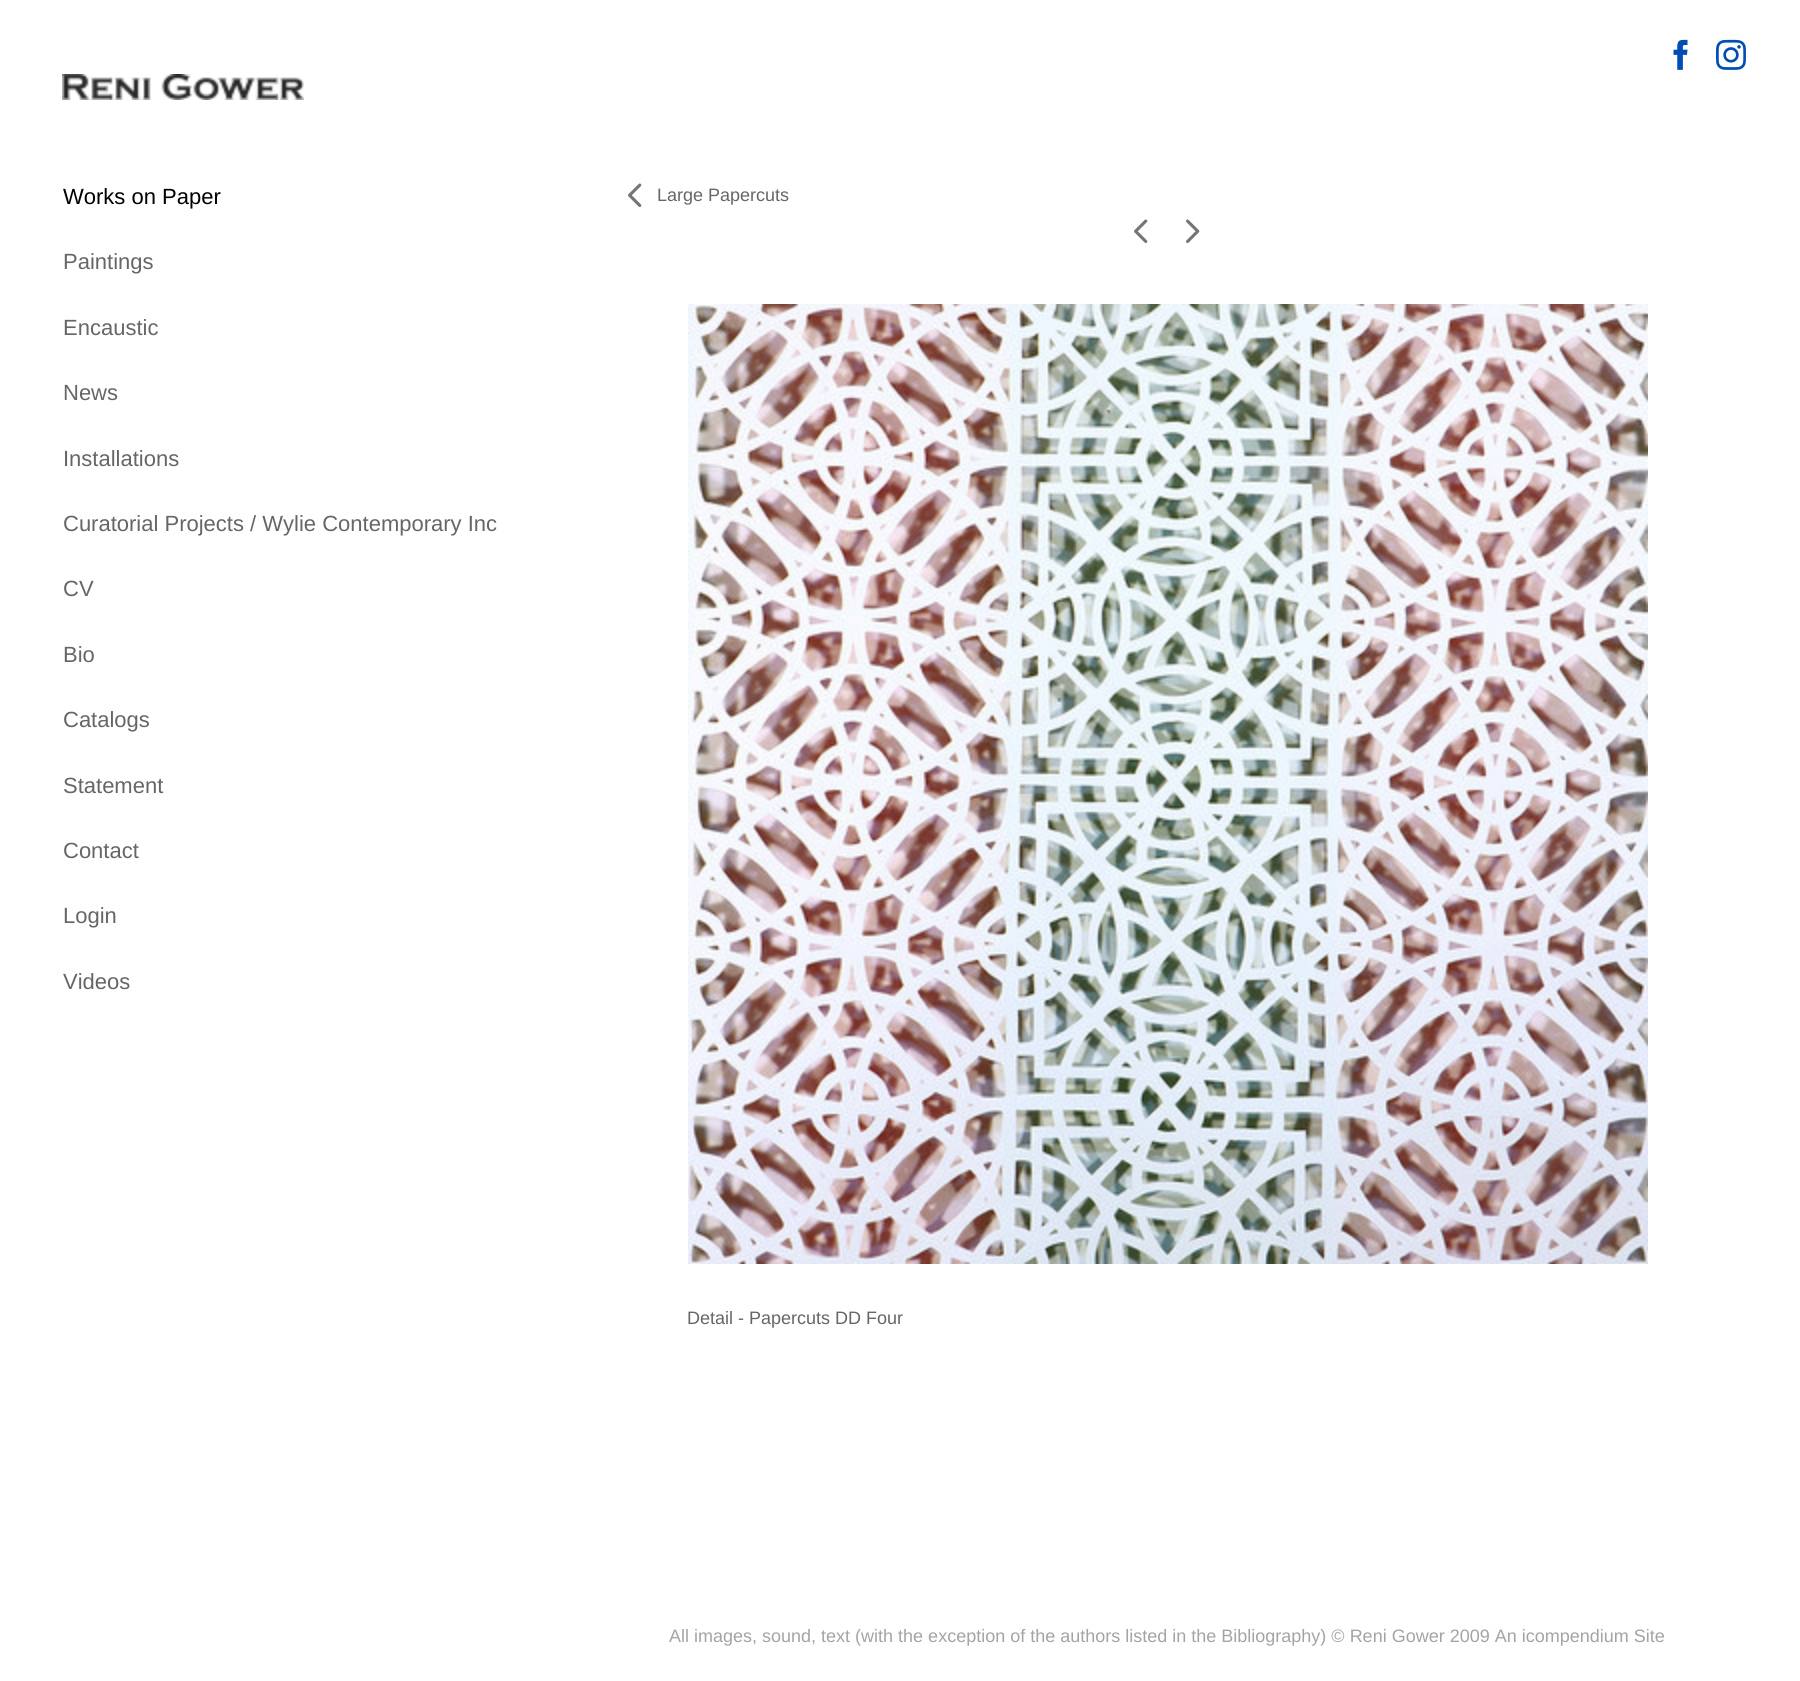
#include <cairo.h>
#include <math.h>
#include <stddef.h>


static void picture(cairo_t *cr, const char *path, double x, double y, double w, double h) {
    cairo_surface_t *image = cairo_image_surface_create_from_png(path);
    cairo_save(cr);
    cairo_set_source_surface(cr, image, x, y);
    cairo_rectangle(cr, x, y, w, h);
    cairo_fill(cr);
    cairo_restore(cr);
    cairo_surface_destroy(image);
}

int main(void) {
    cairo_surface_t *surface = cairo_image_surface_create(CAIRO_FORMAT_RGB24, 1800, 1681);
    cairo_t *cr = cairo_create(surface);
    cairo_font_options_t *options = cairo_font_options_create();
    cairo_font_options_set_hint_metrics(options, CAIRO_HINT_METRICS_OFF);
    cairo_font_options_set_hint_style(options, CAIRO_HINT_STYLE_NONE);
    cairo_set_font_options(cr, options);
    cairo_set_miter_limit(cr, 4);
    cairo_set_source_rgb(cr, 1, 1, 1);
    cairo_paint(cr);
    picture(cr, "img1.png", 1673, 39, 15, 31);
    picture(cr, "img2.png", 1716, 39, 30, 31);
    picture(cr, "img3.png", 62, 74, 242, 26);
    cairo_select_font_face(cr, "Liberation Sans", CAIRO_FONT_SLANT_NORMAL, CAIRO_FONT_WEIGHT_NORMAL);
    cairo_set_font_size(cr, 22);
    cairo_set_source_rgb(cr, 0, 0, 0);
    cairo_move_to(cr, 63, 204);
    cairo_show_text(cr, "Works on Paper");
    cairo_set_source_rgb(cr, 0.4, 0.4, 0.4);
    cairo_move_to(cr, 63, 269);
    cairo_show_text(cr, "Paintings");
    cairo_move_to(cr, 63, 335);
    cairo_show_text(cr, "Encaustic");
    cairo_move_to(cr, 63, 400);
    cairo_show_text(cr, "News");
    cairo_move_to(cr, 63, 466);
    cairo_show_text(cr, "Installations");
    cairo_move_to(cr, 63, 531);
    cairo_show_text(cr, "Curatorial Projects / Wylie Contemporary Inc");
    cairo_move_to(cr, 63, 596);
    cairo_show_text(cr, "CV");
    cairo_move_to(cr, 63, 662);
    cairo_show_text(cr, "Bio");
    cairo_move_to(cr, 63, 727);
    cairo_show_text(cr, "Catalogs");
    cairo_move_to(cr, 63, 793);
    cairo_show_text(cr, "Statement");
    cairo_move_to(cr, 63, 858);
    cairo_show_text(cr, "Contact");
    cairo_move_to(cr, 63, 923);
    cairo_show_text(cr, "Login");
    cairo_move_to(cr, 63, 989);
    cairo_show_text(cr, "Videos");
    picture(cr, "img4.png", 628, 183, 14, 24);
    cairo_set_font_size(cr, 18);
    cairo_move_to(cr, 657, 201);
    cairo_show_text(cr, "Large Papercuts");
    picture(cr, "img4.png", 1134, 219, 14, 24);
    picture(cr, "img5.png", 1186, 219, 14, 24);
    picture(cr, "img6.png", 688, 304, 960, 960);
    cairo_move_to(cr, 687, 1324);
    cairo_show_text(cr, "Detail - Papercuts DD Four");
    cairo_set_source_rgb(cr, 0.643, 0.643, 0.643);
    cairo_move_to(cr, 669, 1642);
    cairo_show_text(cr, "All images, sound, text (with the exception of the authors listed in the Bibliography) © Reni Gower 2009 An icompendium Site");
    cairo_surface_write_to_png(surface, "page.png");
    cairo_font_options_destroy(options);
    cairo_destroy(cr);
    cairo_surface_destroy(surface);
    return 0;
}
